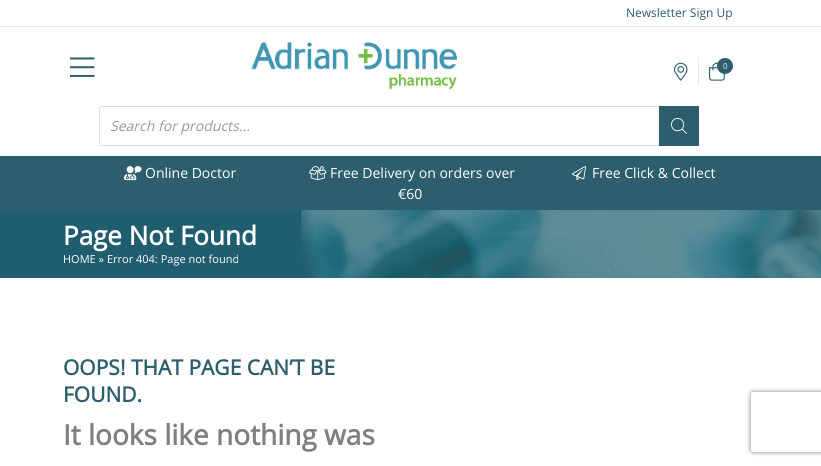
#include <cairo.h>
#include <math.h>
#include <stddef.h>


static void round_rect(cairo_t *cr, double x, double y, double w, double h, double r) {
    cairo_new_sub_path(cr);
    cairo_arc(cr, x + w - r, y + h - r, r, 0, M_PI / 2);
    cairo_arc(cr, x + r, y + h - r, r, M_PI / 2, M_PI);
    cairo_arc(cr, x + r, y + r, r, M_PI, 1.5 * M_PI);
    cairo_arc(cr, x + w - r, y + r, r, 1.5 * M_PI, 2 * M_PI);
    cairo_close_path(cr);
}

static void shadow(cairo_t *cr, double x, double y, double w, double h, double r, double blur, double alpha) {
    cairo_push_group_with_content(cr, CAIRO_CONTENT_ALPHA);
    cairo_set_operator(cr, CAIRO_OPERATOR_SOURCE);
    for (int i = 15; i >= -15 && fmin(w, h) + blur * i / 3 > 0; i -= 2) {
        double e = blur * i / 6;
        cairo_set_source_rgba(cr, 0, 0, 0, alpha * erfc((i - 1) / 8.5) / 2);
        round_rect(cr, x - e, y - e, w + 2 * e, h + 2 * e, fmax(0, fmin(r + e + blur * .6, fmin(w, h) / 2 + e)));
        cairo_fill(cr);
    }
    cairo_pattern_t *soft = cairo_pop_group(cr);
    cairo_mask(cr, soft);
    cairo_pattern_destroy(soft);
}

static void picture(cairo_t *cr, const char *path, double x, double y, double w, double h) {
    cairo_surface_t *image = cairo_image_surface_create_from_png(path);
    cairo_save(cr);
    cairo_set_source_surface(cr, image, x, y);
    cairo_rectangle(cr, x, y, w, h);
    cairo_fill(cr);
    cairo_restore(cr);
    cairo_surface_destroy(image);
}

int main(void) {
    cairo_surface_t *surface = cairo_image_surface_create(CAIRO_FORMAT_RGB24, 821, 466);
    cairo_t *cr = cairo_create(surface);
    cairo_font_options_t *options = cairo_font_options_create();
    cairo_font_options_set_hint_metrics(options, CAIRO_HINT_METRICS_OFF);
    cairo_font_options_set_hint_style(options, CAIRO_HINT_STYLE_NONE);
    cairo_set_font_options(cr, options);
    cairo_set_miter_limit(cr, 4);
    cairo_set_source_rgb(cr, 1, 1, 1);
    cairo_paint(cr);
    cairo_set_source_rgb(cr, 0.918, 0.918, 0.918);
    cairo_rectangle(cr, 0, 26, 821, 1);
    cairo_fill(cr);
    cairo_select_font_face(cr, "Open Sans", CAIRO_FONT_SLANT_NORMAL, CAIRO_FONT_WEIGHT_NORMAL);
    cairo_set_font_size(cr, 12);
    cairo_set_source_rgb(cr, 0.173, 0.369, 0.427);
    cairo_move_to(cr, 626, 17);
    cairo_show_text(cr, "Newsletter Sign Up");
    picture(cr, "img1.png", 70, 57, 25, 20);
    picture(cr, "img2.png", 251, 41, 206, 49);
    picture(cr, "img3.png", 674, 62, 14, 19);
    cairo_set_source_rgb(cr, 0.918, 0.91, 0.894);
    cairo_rectangle(cr, 698, 58, 1, 27);
    cairo_fill(cr);
    picture(cr, "img4.png", 709, 62, 16, 19);
    cairo_set_source_rgb(cr, 0.173, 0.369, 0.427);
    cairo_arc(cr, 725, 66, 8, 0, 2 * M_PI);
    cairo_fill(cr);
    cairo_set_font_size(cr, 8);
    cairo_set_source_rgb(cr, 1, 1, 1);
    cairo_move_to(cr, 723, 69);
    cairo_show_text(cr, "0");
    round_rect(cr, 99.5, 106.5, 599, 39, 2.5);
    cairo_set_source_rgb(cr, 0.867, 0.867, 0.867);
    cairo_set_line_width(cr, 1);
    cairo_stroke(cr);
    cairo_select_font_face(cr, "Open Sans", CAIRO_FONT_SLANT_ITALIC, CAIRO_FONT_WEIGHT_NORMAL);
    cairo_set_font_size(cr, 14);
    cairo_set_source_rgb(cr, 0.6, 0.6, 0.6);
    cairo_move_to(cr, 110, 131);
    cairo_show_text(cr, "Search for products...");
    cairo_set_source_rgb(cr, 0.173, 0.369, 0.427);
    cairo_rectangle(cr, 659, 106, 40, 40);
    cairo_fill(cr);
    picture(cr, "img5.png", 671, 118, 16, 16);
    cairo_rectangle(cr, 0, 156, 821, 54);
    cairo_fill(cr);
    picture(cr, "img6.png", 124, 166, 18, 15);
    cairo_select_font_face(cr, "Open Sans", CAIRO_FONT_SLANT_NORMAL, CAIRO_FONT_WEIGHT_NORMAL);
    cairo_set_source_rgb(cr, 1, 1, 1);
    cairo_move_to(cr, 145, 178);
    cairo_show_text(cr, "Online Doctor");
    picture(cr, "img7.png", 309, 166, 18, 15);
    cairo_move_to(cr, 330, 178);
    cairo_show_text(cr, "Free Delivery on orders over");
    cairo_move_to(cr, 398, 199);
    cairo_show_text(cr, "€60");
    picture(cr, "img8.png", 572, 166, 14, 15);
    cairo_move_to(cr, 592, 178);
    cairo_show_text(cr, "Free Click & Collect");
    cairo_set_source_rgb(cr, 0.125, 0.369, 0.435);
    cairo_rectangle(cr, 0, 210, 821, 68);
    cairo_fill(cr);
    picture(cr, "img9.png", 301, 210, 520, 68);
    cairo_select_font_face(cr, "Open Sans", CAIRO_FONT_SLANT_NORMAL, CAIRO_FONT_WEIGHT_BOLD);
    cairo_set_font_size(cr, 26);
    cairo_set_source_rgb(cr, 1, 1, 1);
    cairo_move_to(cr, 63, 245);
    cairo_show_text(cr, "Page Not Found");
    cairo_select_font_face(cr, "Open Sans", CAIRO_FONT_SLANT_NORMAL, CAIRO_FONT_WEIGHT_NORMAL);
    cairo_set_font_size(cr, 11);
    cairo_move_to(cr, 63, 263);
    cairo_show_text(cr, "HOME » Error 404: Page not found");
    cairo_select_font_face(cr, "Open Sans", CAIRO_FONT_SLANT_NORMAL, CAIRO_FONT_WEIGHT_BOLD);
    cairo_set_font_size(cr, 21);
    cairo_set_source_rgb(cr, 0.173, 0.369, 0.427);
    cairo_move_to(cr, 63, 375);
    cairo_show_text(cr, "OOPS! THAT PAGE CAN’T BE");
    cairo_move_to(cr, 63, 402);
    cairo_show_text(cr, "FOUND.");
    cairo_set_font_size(cr, 28);
    cairo_set_source_rgb(cr, 0.502, 0.502, 0.502);
    cairo_move_to(cr, 63, 445);
    cairo_show_text(cr, "It looks like nothing was");
    cairo_save(cr);
    cairo_set_fill_rule(cr, CAIRO_FILL_RULE_EVEN_ODD);
    cairo_new_path(cr);
    cairo_move_to(cr, 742, 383);
    cairo_line_to(cr, 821, 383);
    cairo_line_to(cr, 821, 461);
    cairo_line_to(cr, 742, 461);
    cairo_close_path(cr);
    cairo_move_to(cr, 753, 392);
    cairo_line_to(cr, 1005, 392);
    cairo_curve_to(cr, 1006, 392, 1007, 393, 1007, 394);
    cairo_line_to(cr, 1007, 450);
    cairo_curve_to(cr, 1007, 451, 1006, 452, 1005, 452);
    cairo_line_to(cr, 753, 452);
    cairo_curve_to(cr, 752, 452, 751, 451, 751, 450);
    cairo_line_to(cr, 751, 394);
    cairo_curve_to(cr, 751, 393, 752, 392, 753, 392);
    cairo_close_path(cr);
    cairo_clip(cr);
    cairo_set_source_rgb(cr, 0.502, 0.502, 0.502);
    shadow(cr, 751, 392, 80, 60, 2, 2.5, 1);
    cairo_restore(cr);
    cairo_surface_write_to_png(surface, "page.png");
    cairo_font_options_destroy(options);
    cairo_destroy(cr);
    cairo_surface_destroy(surface);
    return 0;
}
